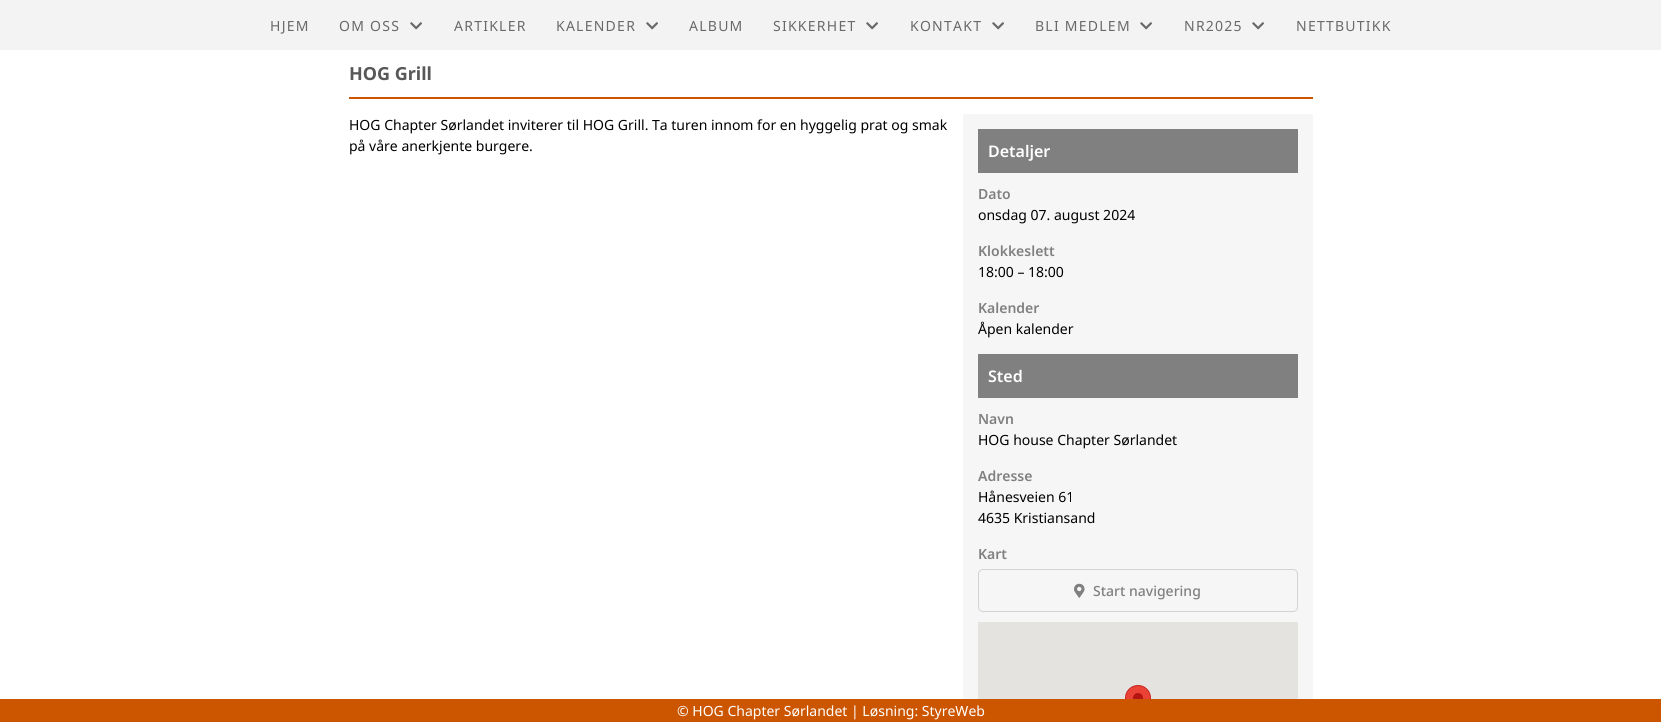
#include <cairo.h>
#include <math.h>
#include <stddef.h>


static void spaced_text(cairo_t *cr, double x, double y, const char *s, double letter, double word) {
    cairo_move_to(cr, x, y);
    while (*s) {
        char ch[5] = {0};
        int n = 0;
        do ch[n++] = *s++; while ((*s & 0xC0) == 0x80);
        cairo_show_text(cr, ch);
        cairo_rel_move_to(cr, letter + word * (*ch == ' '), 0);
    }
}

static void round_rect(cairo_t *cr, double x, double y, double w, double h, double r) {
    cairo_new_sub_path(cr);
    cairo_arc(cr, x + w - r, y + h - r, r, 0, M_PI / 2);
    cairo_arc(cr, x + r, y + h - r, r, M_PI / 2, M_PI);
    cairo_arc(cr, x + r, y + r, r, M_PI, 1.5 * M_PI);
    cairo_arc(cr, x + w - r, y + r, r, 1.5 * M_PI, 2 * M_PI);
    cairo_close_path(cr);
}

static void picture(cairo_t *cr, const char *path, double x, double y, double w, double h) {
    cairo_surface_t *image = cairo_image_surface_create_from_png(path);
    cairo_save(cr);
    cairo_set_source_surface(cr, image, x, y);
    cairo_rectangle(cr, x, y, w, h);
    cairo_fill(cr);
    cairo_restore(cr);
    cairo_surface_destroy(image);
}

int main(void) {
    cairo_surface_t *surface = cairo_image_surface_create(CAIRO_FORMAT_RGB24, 1661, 722);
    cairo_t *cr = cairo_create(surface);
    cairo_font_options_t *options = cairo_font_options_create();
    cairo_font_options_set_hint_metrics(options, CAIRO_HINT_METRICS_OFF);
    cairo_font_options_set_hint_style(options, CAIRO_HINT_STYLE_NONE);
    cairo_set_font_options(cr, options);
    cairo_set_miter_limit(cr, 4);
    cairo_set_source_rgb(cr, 1, 1, 1);
    cairo_paint(cr);
    cairo_set_source_rgb(cr, 0.953, 0.953, 0.953);
    cairo_rectangle(cr, 0, 0, 1661, 50);
    cairo_fill(cr);
    cairo_select_font_face(cr, "Noto Sans", CAIRO_FONT_SLANT_NORMAL, CAIRO_FONT_WEIGHT_NORMAL);
    cairo_set_font_size(cr, 14);
    cairo_set_source_rgb(cr, 0.412, 0.412, 0.412);
    spaced_text(cr, 270, 31, "HJEM", 1.25, 0);
    spaced_text(cr, 339, 31, "OM OSS", 1.25, 0);
    picture(cr, "img1.png", 410, 22, 12, 8);
    spaced_text(cr, 454, 31, "ARTIKLER", 1.25, 0);
    spaced_text(cr, 556, 31, "KALENDER", 1.25, 0);
    picture(cr, "img1.png", 646, 22, 12, 8);
    spaced_text(cr, 689, 31, "ALBUM", 1.25, 0);
    spaced_text(cr, 773, 31, "SIKKERHET", 1.25, 0);
    picture(cr, "img1.png", 866, 22, 12, 8);
    spaced_text(cr, 910, 31, "KONTAKT", 1.25, 0);
    picture(cr, "img1.png", 992, 22, 12, 8);
    spaced_text(cr, 1035, 31, "BLI MEDLEM", 1.25, 0);
    picture(cr, "img1.png", 1140, 22, 12, 8);
    spaced_text(cr, 1184, 31, "NR2025", 1.25, 0);
    picture(cr, "img1.png", 1252, 22, 12, 8);
    spaced_text(cr, 1296, 31, "NETTBUTIKK", 1.25, 0);
    cairo_set_source_rgb(cr, 0.8, 0.337, 0);
    cairo_rectangle(cr, 349, 97, 964, 2);
    cairo_fill(cr);
    cairo_select_font_face(cr, "Noto Sans", CAIRO_FONT_SLANT_NORMAL, CAIRO_FONT_WEIGHT_BOLD);
    cairo_set_font_size(cr, 18);
    cairo_set_source_rgb(cr, 0.345, 0.345, 0.345);
    cairo_move_to(cr, 349, 80);
    cairo_show_text(cr, "HOG Grill");
    cairo_select_font_face(cr, "Noto Sans", CAIRO_FONT_SLANT_NORMAL, CAIRO_FONT_WEIGHT_NORMAL);
    cairo_set_font_size(cr, 14);
    cairo_set_source_rgb(cr, 0, 0, 0);
    cairo_move_to(cr, 349, 130);
    cairo_show_text(cr, "HOG Chapter Sørlandet inviterer til HOG Grill. Ta turen innom for en hyggelig prat og smak");
    cairo_move_to(cr, 349, 151);
    cairo_show_text(cr, "på våre anerkjente burgere.");
    cairo_set_source_rgb(cr, 0.961, 0.961, 0.961);
    cairo_rectangle(cr, 963, 114, 350, 585);
    cairo_fill(cr);
    cairo_set_source_rgb(cr, 0.502, 0.502, 0.502);
    cairo_rectangle(cr, 978, 129, 320, 44);
    cairo_fill(cr);
    cairo_select_font_face(cr, "Noto Sans SemiBold", CAIRO_FONT_SLANT_NORMAL, CAIRO_FONT_WEIGHT_NORMAL);
    cairo_set_font_size(cr, 16);
    cairo_set_source_rgb(cr, 1, 1, 1);
    cairo_move_to(cr, 988, 157);
    cairo_show_text(cr, "Detaljer");
    cairo_set_font_size(cr, 14);
    cairo_set_source_rgb(cr, 0.502, 0.502, 0.502);
    cairo_move_to(cr, 978, 199);
    cairo_show_text(cr, "Dato");
    cairo_select_font_face(cr, "Noto Sans", CAIRO_FONT_SLANT_NORMAL, CAIRO_FONT_WEIGHT_NORMAL);
    cairo_set_source_rgb(cr, 0, 0, 0);
    cairo_move_to(cr, 978, 220);
    cairo_show_text(cr, "onsdag 07. august 2024");
    cairo_select_font_face(cr, "Noto Sans SemiBold", CAIRO_FONT_SLANT_NORMAL, CAIRO_FONT_WEIGHT_NORMAL);
    cairo_set_source_rgb(cr, 0.502, 0.502, 0.502);
    cairo_move_to(cr, 978, 256);
    cairo_show_text(cr, "Klokkeslett");
    cairo_select_font_face(cr, "Noto Sans", CAIRO_FONT_SLANT_NORMAL, CAIRO_FONT_WEIGHT_NORMAL);
    cairo_set_source_rgb(cr, 0, 0, 0);
    cairo_move_to(cr, 978, 277);
    cairo_show_text(cr, "18:00 – 18:00");
    cairo_select_font_face(cr, "Noto Sans SemiBold", CAIRO_FONT_SLANT_NORMAL, CAIRO_FONT_WEIGHT_NORMAL);
    cairo_set_source_rgb(cr, 0.502, 0.502, 0.502);
    cairo_move_to(cr, 978, 313);
    cairo_show_text(cr, "Kalender");
    cairo_select_font_face(cr, "Noto Sans", CAIRO_FONT_SLANT_NORMAL, CAIRO_FONT_WEIGHT_NORMAL);
    cairo_set_source_rgb(cr, 0, 0, 0);
    cairo_move_to(cr, 978, 334);
    cairo_show_text(cr, "Åpen kalender");
    cairo_set_source_rgb(cr, 0.502, 0.502, 0.502);
    cairo_rectangle(cr, 978, 354, 320, 44);
    cairo_fill(cr);
    cairo_select_font_face(cr, "Noto Sans SemiBold", CAIRO_FONT_SLANT_NORMAL, CAIRO_FONT_WEIGHT_NORMAL);
    cairo_set_font_size(cr, 16);
    cairo_set_source_rgb(cr, 1, 1, 1);
    cairo_move_to(cr, 988, 382);
    cairo_show_text(cr, "Sted");
    cairo_set_font_size(cr, 14);
    cairo_set_source_rgb(cr, 0.502, 0.502, 0.502);
    cairo_move_to(cr, 978, 424);
    cairo_show_text(cr, "Navn");
    cairo_select_font_face(cr, "Noto Sans", CAIRO_FONT_SLANT_NORMAL, CAIRO_FONT_WEIGHT_NORMAL);
    cairo_set_source_rgb(cr, 0, 0, 0);
    cairo_move_to(cr, 978, 445);
    cairo_show_text(cr, "HOG house Chapter Sørlandet");
    cairo_select_font_face(cr, "Noto Sans SemiBold", CAIRO_FONT_SLANT_NORMAL, CAIRO_FONT_WEIGHT_NORMAL);
    cairo_set_source_rgb(cr, 0.502, 0.502, 0.502);
    cairo_move_to(cr, 978, 481);
    cairo_show_text(cr, "Adresse");
    cairo_select_font_face(cr, "Noto Sans", CAIRO_FONT_SLANT_NORMAL, CAIRO_FONT_WEIGHT_NORMAL);
    cairo_set_source_rgb(cr, 0, 0, 0);
    cairo_move_to(cr, 978, 502);
    cairo_show_text(cr, "Hånesveien 61");
    cairo_move_to(cr, 978, 523);
    cairo_show_text(cr, "4635 Kristiansand");
    cairo_select_font_face(cr, "Noto Sans SemiBold", CAIRO_FONT_SLANT_NORMAL, CAIRO_FONT_WEIGHT_NORMAL);
    cairo_set_source_rgb(cr, 0.502, 0.502, 0.502);
    cairo_move_to(cr, 978, 559);
    cairo_show_text(cr, "Kart");
    round_rect(cr, 978.5, 569.5, 319, 42, 4.5);
    cairo_set_source_rgb(cr, 0.827, 0.827, 0.827);
    cairo_set_line_width(cr, 1);
    cairo_stroke(cr);
    picture(cr, "img2.png", 1074, 583, 11, 15);
    cairo_select_font_face(cr, "Noto Sans Medium", CAIRO_FONT_SLANT_NORMAL, CAIRO_FONT_WEIGHT_NORMAL);
    cairo_set_source_rgb(cr, 0.502, 0.502, 0.502);
    cairo_move_to(cr, 1093, 596);
    cairo_show_text(cr, "Start navigering");
    cairo_set_source_rgb(cr, 0.898, 0.89, 0.875);
    cairo_rectangle(cr, 978, 622, 320, 77);
    cairo_fill(cr);
    picture(cr, "img3.png", 1125, 685, 26, 14);
    cairo_set_source_rgb(cr, 0.8, 0.337, 0);
    cairo_rectangle(cr, 0, 699, 1661, 23);
    cairo_fill(cr);
    cairo_select_font_face(cr, "Noto Sans", CAIRO_FONT_SLANT_NORMAL, CAIRO_FONT_WEIGHT_NORMAL);
    cairo_set_source_rgb(cr, 1, 1, 1);
    cairo_move_to(cr, 677, 716);
    cairo_show_text(cr, "© HOG Chapter Sørlandet | Løsning: StyreWeb");
    cairo_surface_write_to_png(surface, "page.png");
    cairo_font_options_destroy(options);
    cairo_destroy(cr);
    cairo_surface_destroy(surface);
    return 0;
}
